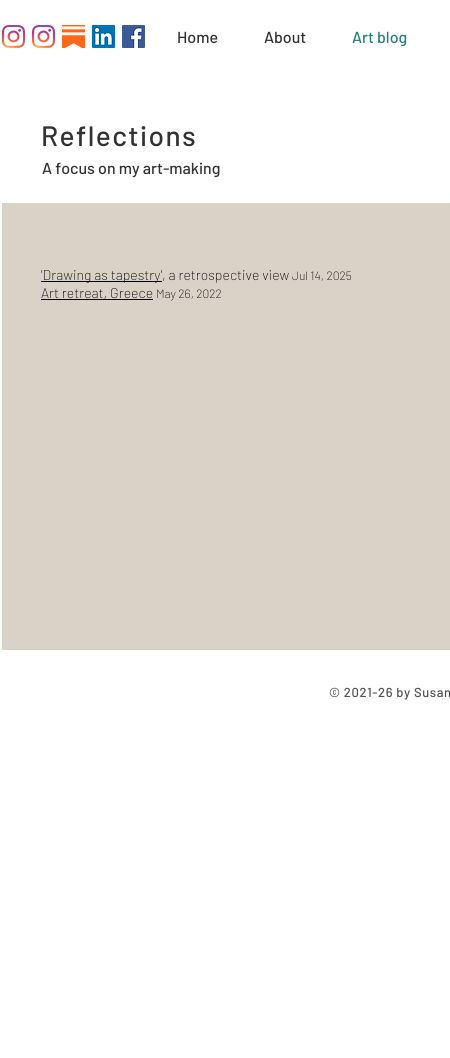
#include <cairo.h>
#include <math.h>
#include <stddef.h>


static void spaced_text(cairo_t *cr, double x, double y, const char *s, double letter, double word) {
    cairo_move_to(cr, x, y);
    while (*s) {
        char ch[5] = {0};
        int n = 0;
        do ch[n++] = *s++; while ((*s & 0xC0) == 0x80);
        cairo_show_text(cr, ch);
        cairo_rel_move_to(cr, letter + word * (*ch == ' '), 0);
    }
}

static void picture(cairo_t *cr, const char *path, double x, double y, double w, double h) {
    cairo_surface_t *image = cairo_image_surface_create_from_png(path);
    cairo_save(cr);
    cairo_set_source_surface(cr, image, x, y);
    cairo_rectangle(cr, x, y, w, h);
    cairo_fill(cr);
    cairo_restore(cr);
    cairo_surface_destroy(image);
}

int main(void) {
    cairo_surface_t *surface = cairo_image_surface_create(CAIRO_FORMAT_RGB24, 450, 1058);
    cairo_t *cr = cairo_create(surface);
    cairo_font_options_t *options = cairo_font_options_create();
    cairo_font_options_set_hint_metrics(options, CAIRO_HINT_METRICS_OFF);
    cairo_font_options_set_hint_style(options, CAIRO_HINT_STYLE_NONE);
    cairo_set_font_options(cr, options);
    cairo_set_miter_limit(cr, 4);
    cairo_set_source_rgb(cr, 1, 1, 1);
    cairo_paint(cr);
    picture(cr, "img1.png", 2, 25, 23, 23);
    picture(cr, "img1.png", 32, 25, 23, 23);
    picture(cr, "img2.png", 62, 25, 23, 23);
    picture(cr, "img3.png", 92, 25, 23, 23);
    picture(cr, "img4.png", 122, 25, 23, 23);
    cairo_select_font_face(cr, "Barlow Medium", CAIRO_FONT_SLANT_NORMAL, CAIRO_FONT_WEIGHT_NORMAL);
    cairo_set_font_size(cr, 16);
    cairo_set_source_rgb(cr, 0.196, 0.196, 0.196);
    cairo_move_to(cr, 177, 43);
    cairo_show_text(cr, "Home");
    cairo_move_to(cr, 264, 43);
    cairo_show_text(cr, "About");
    cairo_set_source_rgb(cr, 0.129, 0.514, 0.463);
    cairo_move_to(cr, 352, 43);
    cairo_show_text(cr, "Art blog");
    cairo_set_font_size(cr, 28);
    cairo_set_source_rgb(cr, 0.196, 0.196, 0.196);
    spaced_text(cr, 41, 146, "Reflections", 1.4, 0);
    cairo_set_font_size(cr, 16);
    cairo_move_to(cr, 42, 174);
    cairo_show_text(cr, "A focus on my art-making");
    cairo_set_source_rgb(cr, 0.851, 0.827, 0.78);
    cairo_rectangle(cr, 2, 203, 448, 447);
    cairo_fill(cr);
    cairo_set_source_rgb(cr, 0, 0, 0);
    cairo_rectangle(cr, 41, 281, 121, 1);
    cairo_fill(cr);
    cairo_select_font_face(cr, "Barlow ExtraLight", CAIRO_FONT_SLANT_NORMAL, CAIRO_FONT_WEIGHT_NORMAL);
    cairo_set_font_size(cr, 14);
    cairo_move_to(cr, 41, 280);
    cairo_show_text(cr, "'Drawing as tapestry', a retrospective view");
    cairo_set_font_size(cr, 12);
    cairo_move_to(cr, 292, 280);
    cairo_show_text(cr, "Jul 14, 2025");
    cairo_set_font_size(cr, 14);
    cairo_move_to(cr, 41, 298);
    cairo_show_text(cr, "Art retreat, Greece");
    cairo_rectangle(cr, 41, 299, 112, 1);
    cairo_fill(cr);
    cairo_set_font_size(cr, 12);
    cairo_move_to(cr, 156, 298);
    cairo_show_text(cr, "May 26, 2022");
    cairo_select_font_face(cr, "Barlow Medium", CAIRO_FONT_SLANT_NORMAL, CAIRO_FONT_WEIGHT_NORMAL);
    cairo_set_font_size(cr, 13);
    cairo_set_source_rgb(cr, 0.314, 0.314, 0.314);
    spaced_text(cr, 329, 697, "© 2021-26 by Susan", 0.6, 0);
    cairo_surface_write_to_png(surface, "page.png");
    cairo_font_options_destroy(options);
    cairo_destroy(cr);
    cairo_surface_destroy(surface);
    return 0;
}
